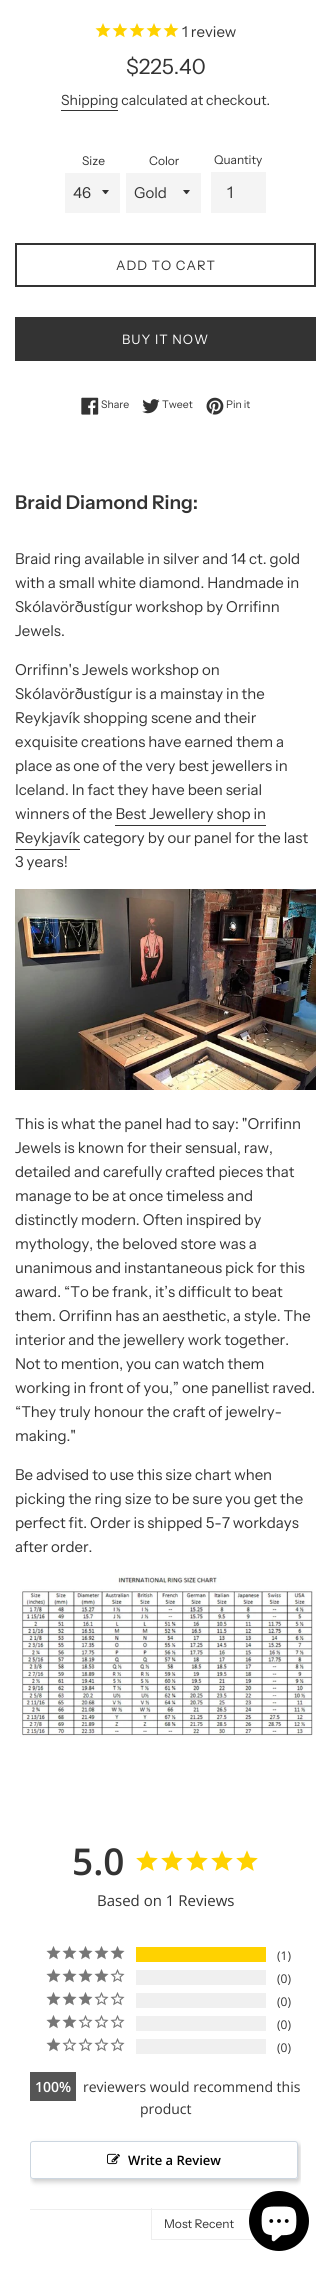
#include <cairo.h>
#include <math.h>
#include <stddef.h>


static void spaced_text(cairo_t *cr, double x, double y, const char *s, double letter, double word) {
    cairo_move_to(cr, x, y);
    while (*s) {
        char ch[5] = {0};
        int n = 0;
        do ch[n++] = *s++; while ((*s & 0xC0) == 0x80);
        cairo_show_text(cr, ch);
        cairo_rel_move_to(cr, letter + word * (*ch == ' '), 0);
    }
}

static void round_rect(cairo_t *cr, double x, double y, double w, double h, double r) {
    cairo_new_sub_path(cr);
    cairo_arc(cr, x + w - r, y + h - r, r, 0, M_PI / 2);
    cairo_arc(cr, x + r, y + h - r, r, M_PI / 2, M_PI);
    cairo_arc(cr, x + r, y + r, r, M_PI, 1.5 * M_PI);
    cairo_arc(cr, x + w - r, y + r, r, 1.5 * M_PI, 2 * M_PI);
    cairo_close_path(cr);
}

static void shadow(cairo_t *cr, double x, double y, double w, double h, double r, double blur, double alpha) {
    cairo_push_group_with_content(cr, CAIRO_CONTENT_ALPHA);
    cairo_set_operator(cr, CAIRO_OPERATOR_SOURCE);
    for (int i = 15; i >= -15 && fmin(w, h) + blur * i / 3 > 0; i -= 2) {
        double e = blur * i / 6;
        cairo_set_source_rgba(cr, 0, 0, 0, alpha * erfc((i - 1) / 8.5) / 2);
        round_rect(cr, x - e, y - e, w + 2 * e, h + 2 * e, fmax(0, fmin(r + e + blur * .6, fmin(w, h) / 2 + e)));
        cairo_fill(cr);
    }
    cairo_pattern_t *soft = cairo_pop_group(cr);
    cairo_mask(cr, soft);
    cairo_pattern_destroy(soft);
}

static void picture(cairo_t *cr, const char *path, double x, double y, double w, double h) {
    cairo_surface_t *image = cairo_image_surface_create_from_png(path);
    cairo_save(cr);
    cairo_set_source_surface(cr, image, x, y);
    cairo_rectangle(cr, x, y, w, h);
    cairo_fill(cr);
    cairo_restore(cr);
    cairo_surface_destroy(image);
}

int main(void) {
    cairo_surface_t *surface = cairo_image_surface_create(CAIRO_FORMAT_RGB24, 331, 2272);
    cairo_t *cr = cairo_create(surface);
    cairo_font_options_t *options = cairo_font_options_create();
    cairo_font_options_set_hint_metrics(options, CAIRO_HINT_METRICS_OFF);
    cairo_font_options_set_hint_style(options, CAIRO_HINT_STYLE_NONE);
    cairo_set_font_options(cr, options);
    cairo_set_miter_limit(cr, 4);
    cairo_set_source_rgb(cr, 1, 1, 1);
    cairo_paint(cr);
    picture(cr, "img1.png", 95, 23, 16, 15);
    picture(cr, "img1.png", 112, 23, 16, 15);
    picture(cr, "img1.png", 129, 23, 16, 15);
    picture(cr, "img1.png", 146, 23, 16, 15);
    picture(cr, "img1.png", 163, 23, 16, 15);
    cairo_select_font_face(cr, "Instrument Sans", CAIRO_FONT_SLANT_NORMAL, CAIRO_FONT_WEIGHT_NORMAL);
    cairo_set_font_size(cr, 15);
    cairo_set_source_rgb(cr, 0.2, 0.2, 0.2);
    cairo_move_to(cr, 182, 37);
    cairo_show_text(cr, "1 review");
    cairo_set_font_size(cr, 21);
    cairo_move_to(cr, 126, 74);
    cairo_show_text(cr, "$225.40");
    cairo_set_font_size(cr, 14);
    cairo_move_to(cr, 61, 105);
    cairo_show_text(cr, "Shipping calculated at checkout.");
    cairo_rectangle(cr, 61, 110, 57, 1);
    cairo_fill(cr);
    cairo_set_font_size(cr, 12);
    cairo_move_to(cr, 82, 165);
    cairo_show_text(cr, "Size");
    cairo_set_source_rgb(cr, 0.957, 0.957, 0.957);
    cairo_rectangle(cr, 65, 173, 55, 40);
    cairo_fill(cr);
    cairo_set_source_rgb(cr, 0.2, 0.2, 0.2);
    cairo_new_path(cr);
    cairo_move_to(cr, 102, 190);
    cairo_curve_to(cr, 106.5, 195.5, 104.5, 195.5, 109, 190);
    cairo_close_path(cr);
    cairo_fill(cr);
    cairo_set_font_size(cr, 15);
    cairo_move_to(cr, 73, 198);
    cairo_show_text(cr, "46");
    cairo_set_font_size(cr, 12);
    cairo_move_to(cr, 149, 165);
    cairo_show_text(cr, "Color");
    cairo_set_source_rgb(cr, 0.957, 0.957, 0.957);
    cairo_rectangle(cr, 126, 173, 75, 40);
    cairo_fill(cr);
    cairo_set_source_rgb(cr, 0.2, 0.2, 0.2);
    cairo_new_path(cr);
    cairo_move_to(cr, 183, 190);
    cairo_curve_to(cr, 187.5, 195.5, 185.5, 195.5, 190, 190);
    cairo_close_path(cr);
    cairo_fill(cr);
    cairo_set_font_size(cr, 15);
    cairo_move_to(cr, 134, 198);
    cairo_show_text(cr, "Gold");
    cairo_set_font_size(cr, 12);
    cairo_move_to(cr, 214, 164);
    cairo_show_text(cr, "Quantity");
    cairo_set_source_rgb(cr, 0.957, 0.957, 0.957);
    cairo_rectangle(cr, 211, 172, 55, 41);
    cairo_fill(cr);
    cairo_set_font_size(cr, 16);
    cairo_set_source_rgb(cr, 0.2, 0.2, 0.2);
    cairo_move_to(cr, 227, 198);
    cairo_show_text(cr, "1");
    cairo_rectangle(cr, 16, 244, 299, 42);
    cairo_stroke(cr);
    cairo_set_font_size(cr, 13);
    spaced_text(cr, 116, 270, "ADD TO CART", 1, 0);
    cairo_rectangle(cr, 15, 317, 301, 44);
    cairo_fill(cr);
    cairo_set_source_rgb(cr, 1, 1, 1);
    spaced_text(cr, 122, 344, "BUY IT NOW", 1, 0);
    picture(cr, "img2.png", 81, 397, 18, 18);
    cairo_set_font_size(cr, 10.5);
    cairo_set_source_rgb(cr, 0.2, 0.2, 0.2);
    cairo_move_to(cr, 101, 408);
    cairo_show_text(cr, "Share");
    picture(cr, "img3.png", 142, 399, 18, 15);
    cairo_move_to(cr, 162, 408);
    cairo_show_text(cr, "Tweet");
    picture(cr, "img4.png", 206, 397, 18, 18);
    cairo_move_to(cr, 226, 408);
    cairo_show_text(cr, "Pin it");
    cairo_select_font_face(cr, "Instrument Sans SemiBold", CAIRO_FONT_SLANT_NORMAL, CAIRO_FONT_WEIGHT_NORMAL);
    cairo_set_font_size(cr, 19);
    cairo_move_to(cr, 15, 509);
    cairo_show_text(cr, "Braid Diamond Ring:");
    cairo_select_font_face(cr, "Instrument Sans", CAIRO_FONT_SLANT_NORMAL, CAIRO_FONT_WEIGHT_NORMAL);
    cairo_set_font_size(cr, 15);
    cairo_move_to(cr, 15, 564);
    cairo_show_text(cr, "Braid ring available in silver and 14 ct. gold");
    cairo_move_to(cr, 15, 588);
    cairo_show_text(cr, "with a small white diamond. Handmade in");
    cairo_move_to(cr, 15, 612);
    cairo_show_text(cr, "Skólavörðustígur workshop by Orrifinn");
    cairo_move_to(cr, 15, 636);
    cairo_show_text(cr, "Jewels.");
    cairo_move_to(cr, 15, 675);
    cairo_show_text(cr, "Orrifinn's Jewels workshop on");
    cairo_move_to(cr, 15, 699);
    cairo_show_text(cr, "Skólavörðustígur is a mainstay in the");
    cairo_move_to(cr, 15, 723);
    cairo_show_text(cr, "Reykjavík shopping scene and their");
    cairo_move_to(cr, 15, 747);
    cairo_show_text(cr, "exquisite creations have earned them a");
    cairo_move_to(cr, 15, 771);
    cairo_show_text(cr, "place as one of the very best jewellers in");
    cairo_move_to(cr, 15, 795);
    cairo_show_text(cr, "Iceland. In fact they have been serial");
    cairo_move_to(cr, 15, 819);
    cairo_show_text(cr, "winners of the Best Jewellery shop in");
    cairo_move_to(cr, 15, 843);
    cairo_show_text(cr, "Reykjavík category by our panel for the last");
    cairo_rectangle(cr, 115, 825, 151, 1);
    cairo_fill(cr);
    cairo_rectangle(cr, 15, 849, 65, 1);
    cairo_fill(cr);
    cairo_move_to(cr, 15, 867);
    cairo_show_text(cr, "3 years!");
    picture(cr, "img5.png", 15, 889, 301, 201);
    cairo_move_to(cr, 15, 1129);
    cairo_show_text(cr, "This is what the panel had to say: \"Orrifinn");
    cairo_move_to(cr, 15, 1153);
    cairo_show_text(cr, "Jewels is known for their sensual, raw,");
    cairo_move_to(cr, 15, 1177);
    cairo_show_text(cr, "detailed and carefully crafted pieces that");
    cairo_move_to(cr, 15, 1201);
    cairo_show_text(cr, "manage to be at once timeless and");
    cairo_move_to(cr, 15, 1225);
    cairo_show_text(cr, "distinctly modern. Often inspired by");
    cairo_move_to(cr, 15, 1249);
    cairo_show_text(cr, "mythology, the beloved store was a");
    cairo_move_to(cr, 15, 1273);
    cairo_show_text(cr, "unanimous and instantaneous pick for this");
    cairo_move_to(cr, 15, 1297);
    cairo_show_text(cr, "award. “To be frank, it’s difficult to beat");
    cairo_move_to(cr, 15, 1321);
    cairo_show_text(cr, "them. Orrifinn has an aesthetic, a style. The");
    cairo_move_to(cr, 15, 1345);
    cairo_show_text(cr, "interior and the jewellery work together.");
    cairo_move_to(cr, 15, 1369);
    cairo_show_text(cr, "Not to mention, you can watch them");
    cairo_move_to(cr, 15, 1393);
    cairo_show_text(cr, "working in front of you,” one panellist raved.");
    cairo_move_to(cr, 15, 1417);
    cairo_show_text(cr, "“They truly honour the craft of jewelry-");
    cairo_move_to(cr, 15, 1441);
    cairo_show_text(cr, "making.\"");
    cairo_move_to(cr, 15, 1480);
    cairo_show_text(cr, "Be advised to use this size chart when");
    cairo_move_to(cr, 15, 1504);
    cairo_show_text(cr, "picking the ring size to be sure you get the");
    cairo_move_to(cr, 15, 1528);
    cairo_show_text(cr, "perfect fit. Order is shipped 5-7 workdays");
    cairo_move_to(cr, 15, 1552);
    cairo_show_text(cr, "after order.");
    picture(cr, "img6.png", 20, 1575, 293, 162);
    cairo_select_font_face(cr, "Open Sans SemiBold", CAIRO_FONT_SLANT_NORMAL, CAIRO_FONT_WEIGHT_NORMAL);
    cairo_set_font_size(cr, 37);
    cairo_move_to(cr, 72, 1875);
    cairo_show_text(cr, "5.0");
    picture(cr, "img7.png", 136, 1850, 22, 21);
    picture(cr, "img7.png", 161, 1850, 22, 21);
    picture(cr, "img7.png", 186, 1850, 22, 21);
    picture(cr, "img7.png", 211, 1850, 22, 21);
    picture(cr, "img7.png", 236, 1850, 22, 21);
    cairo_select_font_face(cr, "Open Sans", CAIRO_FONT_SLANT_NORMAL, CAIRO_FONT_WEIGHT_NORMAL);
    cairo_set_font_size(cr, 15);
    cairo_move_to(cr, 97, 1906);
    cairo_show_text(cr, "Based on 1 Reviews");
    picture(cr, "img8.png", 46, 1946, 79, 14);
    cairo_set_source_rgb(cr, 1, 0.824, 0);
    cairo_rectangle(cr, 136, 1947, 130, 15);
    cairo_fill(cr);
    cairo_set_font_size(cr, 12);
    cairo_set_source_rgb(cr, 0.2, 0.2, 0.2);
    cairo_move_to(cr, 277, 1960);
    cairo_show_text(cr, "(1)");
    picture(cr, "img9.png", 46, 1969, 79, 14);
    cairo_set_source_rgb(cr, 0.941, 0.941, 0.941);
    cairo_rectangle(cr, 136, 1970, 130, 15);
    cairo_fill(cr);
    cairo_set_source_rgb(cr, 0.2, 0.2, 0.2);
    cairo_move_to(cr, 277, 1983);
    cairo_show_text(cr, "(0)");
    picture(cr, "img10.png", 46, 1992, 79, 14);
    cairo_set_source_rgb(cr, 0.941, 0.941, 0.941);
    cairo_rectangle(cr, 136, 1993, 130, 15);
    cairo_fill(cr);
    cairo_set_source_rgb(cr, 0.2, 0.2, 0.2);
    cairo_move_to(cr, 277, 2006);
    cairo_show_text(cr, "(0)");
    picture(cr, "img11.png", 46, 2015, 79, 14);
    cairo_set_source_rgb(cr, 0.941, 0.941, 0.941);
    cairo_rectangle(cr, 136, 2016, 130, 15);
    cairo_fill(cr);
    cairo_set_source_rgb(cr, 0.2, 0.2, 0.2);
    cairo_move_to(cr, 277, 2029);
    cairo_show_text(cr, "(0)");
    picture(cr, "img12.png", 46, 2038, 79, 14);
    cairo_set_source_rgb(cr, 0.941, 0.941, 0.941);
    cairo_rectangle(cr, 136, 2039, 130, 15);
    cairo_fill(cr);
    cairo_set_source_rgb(cr, 0.2, 0.2, 0.2);
    cairo_move_to(cr, 277, 2052);
    cairo_show_text(cr, "(0)");
    cairo_set_source_rgb(cr, 0.333, 0.333, 0.333);
    cairo_rectangle(cr, 30, 2072, 46, 29);
    cairo_fill(cr);
    cairo_select_font_face(cr, "Open Sans SemiBold", CAIRO_FONT_SLANT_NORMAL, CAIRO_FONT_WEIGHT_NORMAL);
    cairo_set_font_size(cr, 14);
    cairo_set_source_rgb(cr, 1, 1, 1);
    cairo_move_to(cr, 35, 2092);
    cairo_show_text(cr, "100%");
    cairo_select_font_face(cr, "Open Sans", CAIRO_FONT_SLANT_NORMAL, CAIRO_FONT_WEIGHT_NORMAL);
    cairo_set_source_rgb(cr, 0.2, 0.2, 0.2);
    cairo_move_to(cr, 83, 2092);
    cairo_show_text(cr, "reviewers would recommend this");
    cairo_move_to(cr, 140, 2114);
    cairo_show_text(cr, "product");
    cairo_save(cr);
    cairo_rectangle(cr, 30, 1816, 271, 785);
    cairo_clip(cr);
    cairo_set_fill_rule(cr, CAIRO_FILL_RULE_EVEN_ODD);
    cairo_new_path(cr);
    cairo_move_to(cr, 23, 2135);
    cairo_line_to(cr, 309, 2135);
    cairo_line_to(cr, 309, 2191);
    cairo_line_to(cr, 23, 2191);
    cairo_close_path(cr);
    cairo_move_to(cr, 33, 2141);
    cairo_line_to(cr, 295, 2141);
    cairo_curve_to(cr, 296.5, 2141, 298, 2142.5, 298, 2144);
    cairo_line_to(cr, 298, 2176);
    cairo_curve_to(cr, 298, 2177.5, 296.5, 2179, 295, 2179);
    cairo_line_to(cr, 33, 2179);
    cairo_curve_to(cr, 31.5, 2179, 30, 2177.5, 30, 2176);
    cairo_line_to(cr, 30, 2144);
    cairo_curve_to(cr, 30, 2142.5, 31.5, 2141, 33, 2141);
    cairo_close_path(cr);
    cairo_clip(cr);
    cairo_set_source_rgb(cr, 0.533, 0.533, 0.533);
    shadow(cr, 32, 2144, 268, 38, 3, 2.5, 0.42);
    cairo_restore(cr);
    round_rect(cr, 30.5, 2141.5, 267, 37, 2.5);
    cairo_set_source_rgb(cr, 0.8, 0.839, 0.878);
    cairo_set_line_width(cr, 1);
    cairo_stroke(cr);
    picture(cr, "img13.png", 107, 2153, 13, 12);
    cairo_select_font_face(cr, "Open Sans SemiBold", CAIRO_FONT_SLANT_NORMAL, CAIRO_FONT_WEIGHT_NORMAL);
    cairo_set_font_size(cr, 13);
    cairo_set_source_rgb(cr, 0, 0, 0);
    cairo_move_to(cr, 128, 2165);
    cairo_show_text(cr, "Write a Review");
    cairo_set_source_rgb(cr, 0.933, 0.933, 0.933);
    cairo_rectangle(cr, 151, 2239, 105, 1);
    cairo_fill(cr);
    cairo_rectangle(cr, 151, 2208, 1, 32);
    cairo_fill(cr);
    cairo_rectangle(cr, 30, 2209, 222, 1);
    cairo_fill(cr);
    cairo_select_font_face(cr, "Instrument Sans", CAIRO_FONT_SLANT_NORMAL, CAIRO_FONT_WEIGHT_NORMAL);
    cairo_set_font_size(cr, 12);
    cairo_set_source_rgb(cr, 0.2, 0.2, 0.2);
    cairo_move_to(cr, 164, 2228);
    cairo_show_text(cr, "Most Recent");
    cairo_set_source_rgb(cr, 0, 0, 0);
    cairo_new_path(cr);
    cairo_arc(cr, 279, 2221, 30, 0, 2 * M_PI);
    cairo_fill(cr);
    picture(cr, "img14.png", 261, 2206, 36, 36);
    cairo_surface_write_to_png(surface, "page.png");
    cairo_font_options_destroy(options);
    cairo_destroy(cr);
    cairo_surface_destroy(surface);
    return 0;
}
